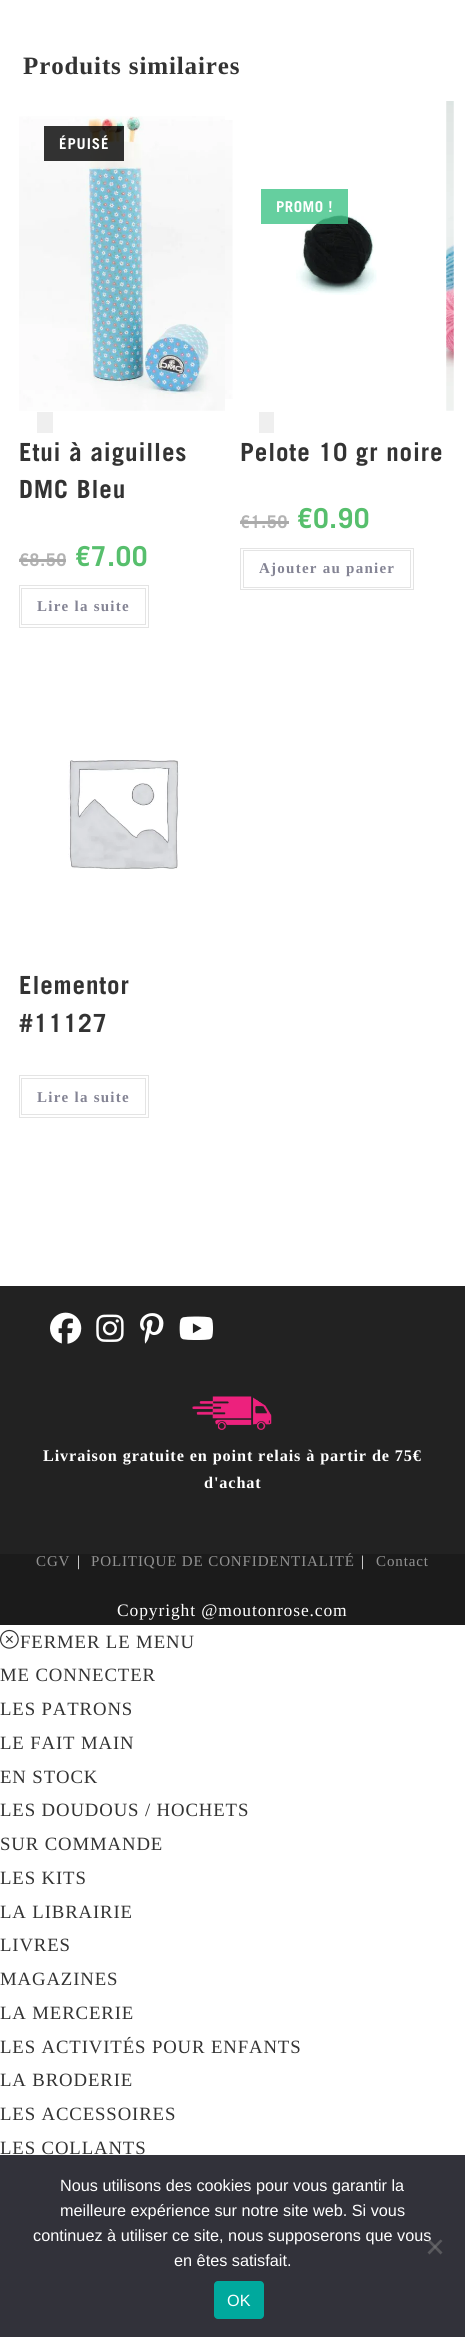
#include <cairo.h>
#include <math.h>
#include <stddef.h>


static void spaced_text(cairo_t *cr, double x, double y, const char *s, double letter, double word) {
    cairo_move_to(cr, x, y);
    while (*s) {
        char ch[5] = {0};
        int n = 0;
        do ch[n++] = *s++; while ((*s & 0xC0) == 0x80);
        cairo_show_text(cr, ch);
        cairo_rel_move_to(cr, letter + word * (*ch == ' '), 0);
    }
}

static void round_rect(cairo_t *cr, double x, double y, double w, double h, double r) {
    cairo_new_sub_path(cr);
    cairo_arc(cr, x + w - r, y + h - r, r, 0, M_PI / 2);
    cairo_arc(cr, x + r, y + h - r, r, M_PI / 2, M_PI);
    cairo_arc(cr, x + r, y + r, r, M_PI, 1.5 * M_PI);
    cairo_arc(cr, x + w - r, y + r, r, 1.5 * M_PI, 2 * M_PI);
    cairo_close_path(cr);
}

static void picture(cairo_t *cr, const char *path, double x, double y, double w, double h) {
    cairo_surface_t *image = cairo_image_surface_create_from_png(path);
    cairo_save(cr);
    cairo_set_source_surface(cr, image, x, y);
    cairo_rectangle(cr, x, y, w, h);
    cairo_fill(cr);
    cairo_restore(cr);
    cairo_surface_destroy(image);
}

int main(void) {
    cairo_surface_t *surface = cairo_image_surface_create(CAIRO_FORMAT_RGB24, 465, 2337);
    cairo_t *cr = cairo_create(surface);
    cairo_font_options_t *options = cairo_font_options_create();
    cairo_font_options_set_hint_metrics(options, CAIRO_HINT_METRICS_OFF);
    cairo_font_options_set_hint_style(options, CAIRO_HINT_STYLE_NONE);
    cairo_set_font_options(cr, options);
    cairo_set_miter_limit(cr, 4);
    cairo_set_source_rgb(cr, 1, 1, 1);
    cairo_paint(cr);
    cairo_select_font_face(cr, "Liberation Serif", CAIRO_FONT_SLANT_NORMAL, CAIRO_FONT_WEIGHT_BOLD);
    cairo_set_font_size(cr, 25);
    cairo_set_source_rgb(cr, 0.2, 0.2, 0.2);
    spaced_text(cr, 23, 74, "Produits similaires", 0.88, 0);
    picture(cr, "img1.png", 19, 116, 206, 295);
    picture(cr, "img2.png", 225, 120, 8, 279);
    cairo_set_source_rgb(cr, 0.937, 0.937, 0.937);
    cairo_rectangle(cr, 37, 412, 16, 21);
    cairo_fill(cr);
    cairo_set_source_rgba(cr, 0, 0, 0, 0.8);
    cairo_rectangle(cr, 44, 126, 80, 35);
    cairo_fill(cr);
    cairo_select_font_face(cr, "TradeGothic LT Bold", CAIRO_FONT_SLANT_NORMAL, CAIRO_FONT_WEIGHT_BOLD);
    cairo_set_font_size(cr, 15);
    cairo_set_source_rgb(cr, 1, 1, 1);
    spaced_text(cr, 59, 149, "ÉPUISÉ", 0.88, 0);
    cairo_set_font_size(cr, 25);
    cairo_set_source_rgb(cr, 0.2, 0.2, 0.2);
    spaced_text(cr, 19, 461, "Etui à aiguilles", 0.88, 0);
    spaced_text(cr, 19, 498, "DMC Bleu", 0.88, 0);
    cairo_set_font_size(cr, 17.5);
    cairo_set_source_rgb(cr, 0.702, 0.702, 0.702);
    spaced_text(cr, 19, 566, "€8.50", 0.88, 0);
    cairo_set_source_rgb(cr, 0.667, 0.667, 0.667);
    cairo_rectangle(cr, 19, 559, 47, 3);
    cairo_fill(cr);
    cairo_set_font_size(cr, 27.5);
    cairo_set_source_rgb(cr, 0.341, 0.749, 0.427);
    spaced_text(cr, 75, 566, "€7.00", 0.88, 0);
    cairo_rectangle(cr, 19.5, 585.5, 129, 42);
    cairo_set_source_rgb(cr, 0.894, 0.894, 0.894);
    cairo_set_line_width(cr, 1);
    cairo_stroke(cr);
    cairo_rectangle(cr, 21.5, 588.5, 124, 36);
    cairo_stroke(cr);
    cairo_select_font_face(cr, "Liberation Serif", CAIRO_FONT_SLANT_NORMAL, CAIRO_FONT_WEIGHT_BOLD);
    cairo_set_font_size(cr, 15);
    cairo_set_source_rgb(cr, 0.518, 0.518, 0.58);
    spaced_text(cr, 37, 611, "Lire la suite", 1.25, 0);
    picture(cr, "img3.png", 296, 214, 81, 81);
    picture(cr, "img4.png", 446, 101, 8, 310);
    cairo_set_source_rgb(cr, 0.937, 0.937, 0.937);
    cairo_rectangle(cr, 259, 412, 15, 21);
    cairo_fill(cr);
    cairo_set_source_rgba(cr, 0.247, 0.765, 0.529, 0.8);
    cairo_rectangle(cr, 261, 189, 87, 35);
    cairo_fill(cr);
    cairo_select_font_face(cr, "TradeGothic LT Bold", CAIRO_FONT_SLANT_NORMAL, CAIRO_FONT_WEIGHT_BOLD);
    cairo_set_source_rgb(cr, 1, 1, 1);
    spaced_text(cr, 276, 212, "PROMO !", 0.5, 0);
    cairo_set_font_size(cr, 25);
    cairo_set_source_rgb(cr, 0.2, 0.2, 0.2);
    spaced_text(cr, 240, 461, "Pelote 10 gr noire", 0.88, 0);
    cairo_set_font_size(cr, 17.5);
    cairo_set_source_rgb(cr, 0.702, 0.702, 0.702);
    spaced_text(cr, 240, 528, "€1.50", 0.88, 0);
    cairo_set_source_rgb(cr, 0.667, 0.667, 0.667);
    cairo_rectangle(cr, 240, 521, 49, 3);
    cairo_fill(cr);
    cairo_set_font_size(cr, 27.5);
    cairo_set_source_rgb(cr, 0.341, 0.749, 0.427);
    spaced_text(cr, 297, 528, "€0.90", 0.88, 0);
    cairo_rectangle(cr, 240.5, 548.5, 173, 41);
    cairo_set_source_rgb(cr, 0.894, 0.894, 0.894);
    cairo_stroke(cr);
    cairo_rectangle(cr, 243.5, 550.5, 167, 37);
    cairo_stroke(cr);
    cairo_select_font_face(cr, "Liberation Serif", CAIRO_FONT_SLANT_NORMAL, CAIRO_FONT_WEIGHT_BOLD);
    cairo_set_font_size(cr, 15);
    cairo_set_source_rgb(cr, 0.518, 0.518, 0.58);
    spaced_text(cr, 259, 573, "Ajouter au panier", 1.25, 0);
    picture(cr, "img5.png", 68, 760, 112, 109);
    cairo_select_font_face(cr, "TradeGothic LT Bold", CAIRO_FONT_SLANT_NORMAL, CAIRO_FONT_WEIGHT_BOLD);
    cairo_set_font_size(cr, 25);
    cairo_set_source_rgb(cr, 0.2, 0.2, 0.2);
    spaced_text(cr, 19, 994, "Elementor", 0.88, 0);
    spaced_text(cr, 19, 1032, "#11127", 0.88, 0);
    cairo_rectangle(cr, 19.5, 1075.5, 129, 42);
    cairo_set_source_rgb(cr, 0.894, 0.894, 0.894);
    cairo_stroke(cr);
    cairo_rectangle(cr, 21.5, 1078.5, 124, 36);
    cairo_stroke(cr);
    cairo_select_font_face(cr, "Liberation Serif", CAIRO_FONT_SLANT_NORMAL, CAIRO_FONT_WEIGHT_BOLD);
    cairo_set_font_size(cr, 15);
    cairo_set_source_rgb(cr, 0.518, 0.518, 0.58);
    spaced_text(cr, 37, 1102, "Lire la suite", 1.25, 0);
    cairo_set_source_rgb(cr, 0.133, 0.133, 0.133);
    cairo_rectangle(cr, 0, 1286, 465, 268);
    cairo_fill(cr);
    picture(cr, "img6.png", 50, 1312, 32, 32);
    picture(cr, "img7.png", 96, 1314, 28, 28);
    picture(cr, "img8.png", 140, 1313, 24, 31);
    picture(cr, "img9.png", 179, 1316, 34, 24);
    picture(cr, "img10.png", 192, 1396, 80, 34);
    cairo_set_font_size(cr, 16.25);
    cairo_set_source_rgb(cr, 1, 1, 1);
    spaced_text(cr, 43, 1461, "Livraison gratuite en point relais à partir de 75€", 0.88, 0);
    spaced_text(cr, 204, 1488, "d'achat", 0.88, 0);
    cairo_set_source_rgb(cr, 0.106, 0.106, 0.106);
    cairo_rectangle(cr, 0, 1554, 465, 71);
    cairo_fill(cr);
    cairo_select_font_face(cr, "Liberation Serif", CAIRO_FONT_SLANT_NORMAL, CAIRO_FONT_WEIGHT_NORMAL);
    cairo_set_font_size(cr, 15);
    cairo_set_source_rgb(cr, 0.573, 0.573, 0.573);
    spaced_text(cr, 36, 1566, "CGV", 0.88, 0);
    cairo_set_source_rgb(cr, 1, 1, 1);
    spaced_text(cr, 77, 1566, "|", 0.88, 0);
    cairo_set_source_rgb(cr, 0.573, 0.573, 0.573);
    spaced_text(cr, 91, 1566, "POLITIQUE DE CONFIDENTIALITÉ", 0.88, 0);
    cairo_set_source_rgb(cr, 1, 1, 1);
    spaced_text(cr, 361, 1566, "|", 0.88, 0);
    cairo_set_source_rgb(cr, 0.573, 0.573, 0.573);
    spaced_text(cr, 376, 1566, "Contact", 0.88, 0);
    cairo_set_font_size(cr, 17.5);
    cairo_set_source_rgb(cr, 1, 1, 1);
    spaced_text(cr, 117, 1616, "Copyright @moutonrose.com", 0.88, 0);
    picture(cr, "img11.png", 0, 1629, 19, 20);
    cairo_set_font_size(cr, 18.75);
    cairo_set_source_rgb(cr, 0.2, 0.2, 0.2);
    spaced_text(cr, 20, 1648, "FERMER LE MENU", 0.88, 0);
    spaced_text(cr, 0, 1681, "ME CONNECTER", 0.88, 0);
    spaced_text(cr, 0, 1715, "LES PATRONS", 0.88, 0);
    spaced_text(cr, 0, 1749, "LE FAIT MAIN", 0.88, 0);
    spaced_text(cr, 0, 1783, "EN STOCK", 0.88, 0);
    spaced_text(cr, 0, 1816, "LES DOUDOUS / HOCHETS", 0.88, 0);
    spaced_text(cr, 0, 1850, "SUR COMMANDE", 0.88, 0);
    spaced_text(cr, 0, 1884, "LES KITS", 0.88, 0);
    spaced_text(cr, 0, 1918, "LA LIBRAIRIE", 0.88, 0);
    spaced_text(cr, 0, 1951, "LIVRES", 0.88, 0);
    spaced_text(cr, 0, 1985, "MAGAZINES", 0.88, 0);
    spaced_text(cr, 0, 2019, "LA MERCERIE", 0.88, 0);
    spaced_text(cr, 0, 2053, "LES ACTIVITÉS POUR ENFANTS", 0.88, 0);
    spaced_text(cr, 0, 2086, "LA BRODERIE", 0.88, 0);
    spaced_text(cr, 0, 2120, "LES ACCESSOIRES", 0.88, 0);
    spaced_text(cr, 0, 2154, "LES COLLANTS", 0.88, 0);
    cairo_set_source_rgb(cr, 0.196, 0.196, 0.227);
    cairo_rectangle(cr, 0, 2155, 465, 182);
    cairo_fill(cr);
    cairo_select_font_face(cr, "Liberation Sans", CAIRO_FONT_SLANT_NORMAL, CAIRO_FONT_WEIGHT_NORMAL);
    cairo_set_font_size(cr, 16.25);
    cairo_set_source_rgb(cr, 1, 1, 1);
    cairo_move_to(cr, 60, 2191);
    cairo_show_text(cr, "Nous utilisons des cookies pour vous garantir la");
    cairo_move_to(cr, 60, 2216);
    cairo_show_text(cr, "meilleure expérience sur notre site web. Si vous");
    cairo_move_to(cr, 33, 2241);
    cairo_show_text(cr, "continuez à utiliser ce site, nous supposerons que vous");
    cairo_move_to(cr, 174, 2266);
    cairo_show_text(cr, "en êtes satisfait.");
    cairo_set_source_rgb(cr, 0.349, 0.349, 0.365);
    cairo_new_path(cr);
    cairo_move_to(cr, 440.5, 2239.5);
    cairo_line_to(cr, 442.5, 2241);
    cairo_line_to(cr, 429.5, 2254.5);
    cairo_line_to(cr, 427.5, 2252.5);
    cairo_close_path(cr);
    cairo_fill(cr);
    cairo_set_source_rgba(cr, 0.502, 0.502, 0.502, 0.5);
    cairo_new_path(cr);
    cairo_move_to(cr, 427.5, 2241);
    cairo_line_to(cr, 429.5, 2239.5);
    cairo_line_to(cr, 442.5, 2252.5);
    cairo_line_to(cr, 440.5, 2254.5);
    cairo_close_path(cr);
    cairo_fill(cr);
    cairo_set_source_rgb(cr, 0, 0.663, 0.616);
    round_rect(cr, 214, 2281, 50, 38, 4);
    cairo_fill(cr);
    cairo_set_source_rgb(cr, 1, 1, 1);
    cairo_move_to(cr, 227, 2306);
    cairo_show_text(cr, "OK");
    cairo_surface_write_to_png(surface, "page.png");
    cairo_font_options_destroy(options);
    cairo_destroy(cr);
    cairo_surface_destroy(surface);
    return 0;
}
